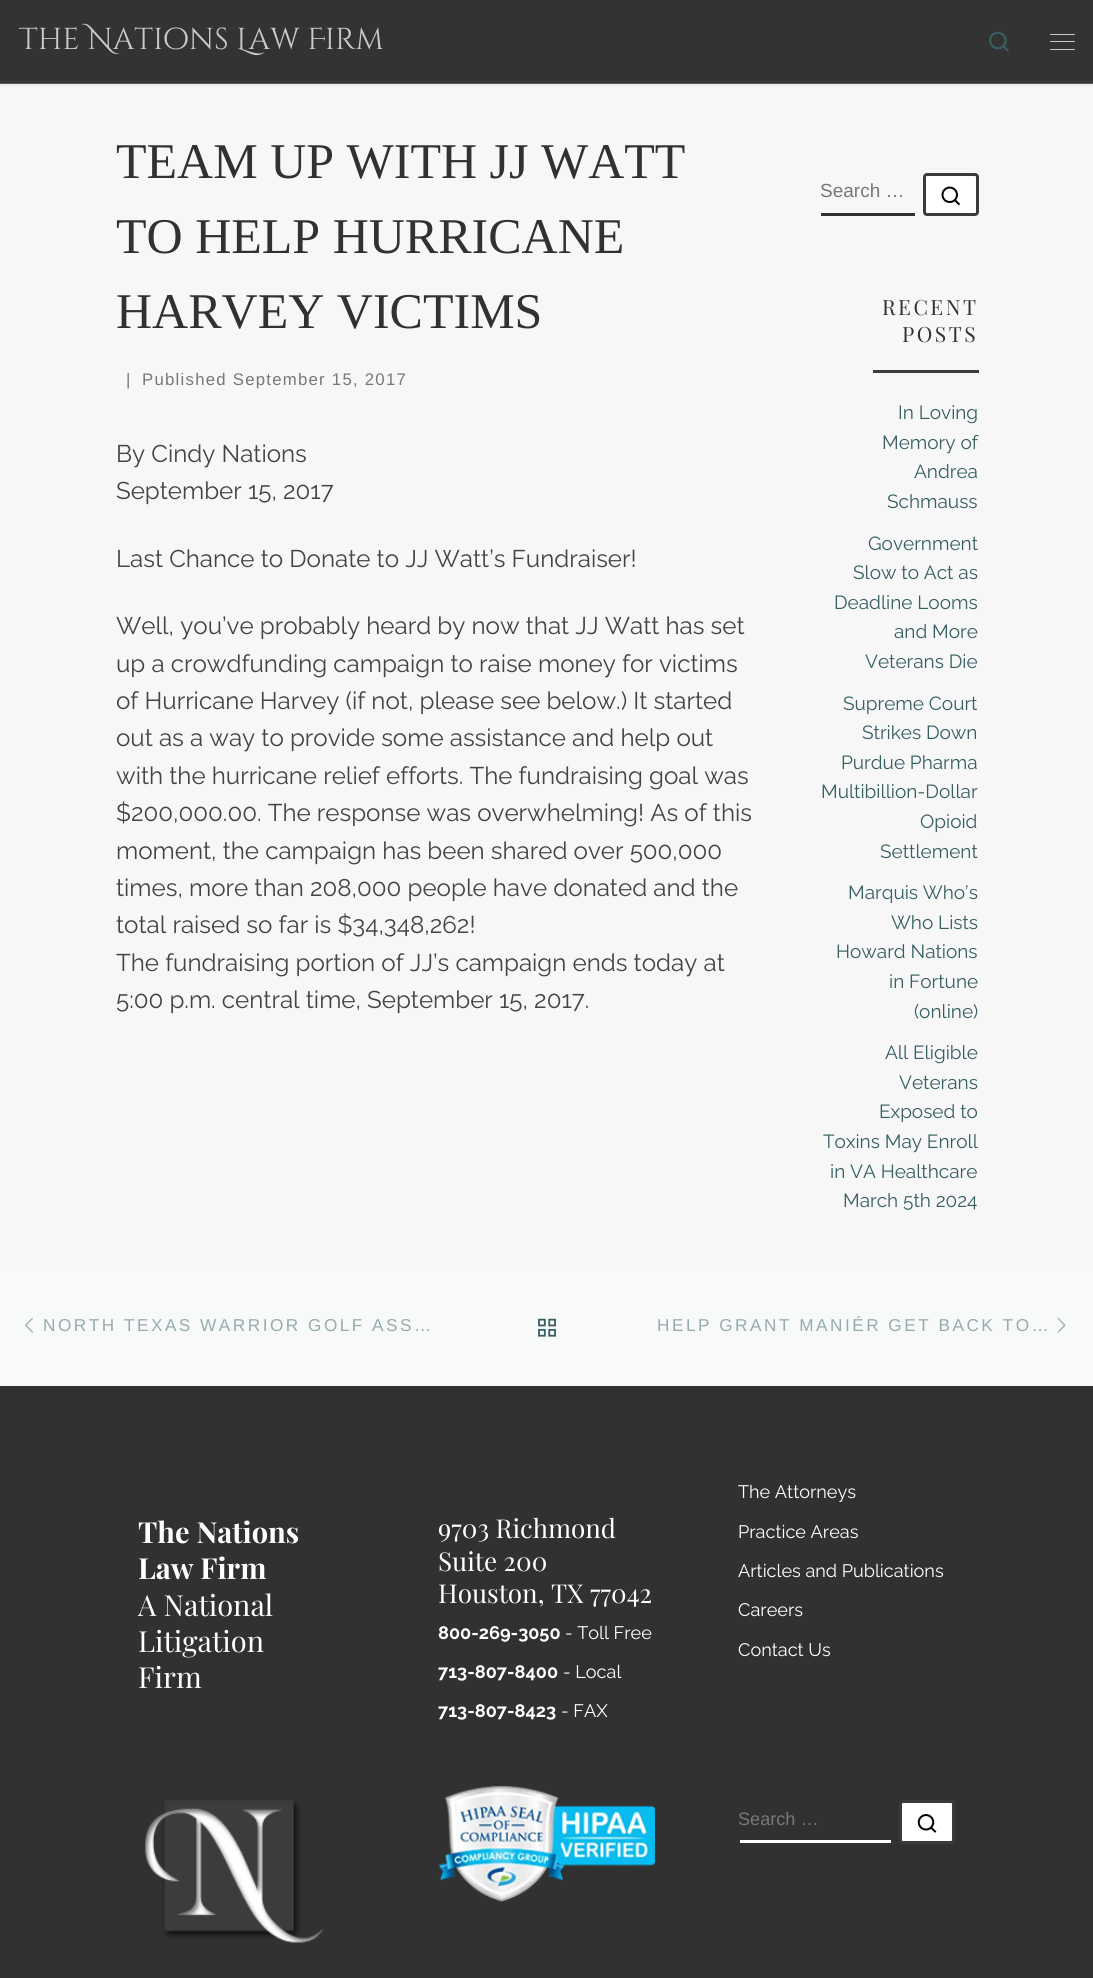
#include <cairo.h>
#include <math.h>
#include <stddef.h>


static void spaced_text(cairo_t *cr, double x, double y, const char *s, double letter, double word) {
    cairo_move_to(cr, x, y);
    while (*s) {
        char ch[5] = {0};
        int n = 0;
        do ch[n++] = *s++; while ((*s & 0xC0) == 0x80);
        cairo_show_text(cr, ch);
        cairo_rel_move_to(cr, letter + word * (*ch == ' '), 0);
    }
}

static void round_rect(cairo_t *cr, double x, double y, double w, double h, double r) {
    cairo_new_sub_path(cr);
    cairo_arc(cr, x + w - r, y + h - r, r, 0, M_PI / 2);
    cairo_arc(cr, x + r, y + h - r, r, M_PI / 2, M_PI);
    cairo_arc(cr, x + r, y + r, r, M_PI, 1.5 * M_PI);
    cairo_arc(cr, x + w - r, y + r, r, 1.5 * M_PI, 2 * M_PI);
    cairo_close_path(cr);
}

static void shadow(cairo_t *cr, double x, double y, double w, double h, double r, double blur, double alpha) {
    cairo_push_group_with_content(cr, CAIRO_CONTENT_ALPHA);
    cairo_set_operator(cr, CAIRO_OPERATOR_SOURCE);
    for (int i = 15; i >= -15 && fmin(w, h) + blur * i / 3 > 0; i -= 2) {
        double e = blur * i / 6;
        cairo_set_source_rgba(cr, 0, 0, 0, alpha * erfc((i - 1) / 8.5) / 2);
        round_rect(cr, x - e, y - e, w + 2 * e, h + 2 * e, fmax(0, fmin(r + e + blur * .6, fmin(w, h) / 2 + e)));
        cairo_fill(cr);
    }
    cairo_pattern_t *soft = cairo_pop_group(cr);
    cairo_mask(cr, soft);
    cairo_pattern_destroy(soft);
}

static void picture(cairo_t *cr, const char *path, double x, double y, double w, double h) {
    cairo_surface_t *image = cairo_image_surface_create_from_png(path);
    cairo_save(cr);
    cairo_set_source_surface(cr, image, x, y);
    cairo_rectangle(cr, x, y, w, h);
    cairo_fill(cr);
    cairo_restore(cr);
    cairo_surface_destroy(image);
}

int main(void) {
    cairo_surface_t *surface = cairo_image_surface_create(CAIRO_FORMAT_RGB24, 1093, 1978);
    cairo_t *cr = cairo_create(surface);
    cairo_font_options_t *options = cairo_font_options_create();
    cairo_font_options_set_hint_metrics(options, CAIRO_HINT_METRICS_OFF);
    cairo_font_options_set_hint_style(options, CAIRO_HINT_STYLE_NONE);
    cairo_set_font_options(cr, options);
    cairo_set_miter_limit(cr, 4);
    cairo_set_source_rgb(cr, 0.965, 0.965, 0.965);
    cairo_paint(cr);
    cairo_set_source_rgb(cr, 0.4, 0.4, 0.4);
    shadow(cr, 0, 3, 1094, 83, 0, 1, 0.08);
    cairo_set_source_rgb(cr, 0.255, 0.255, 0.255);
    cairo_rectangle(cr, 0, 83, 1093, 1);
    cairo_fill(cr);
    cairo_set_source_rgba(cr, 1, 1, 1, 0.15);
    cairo_new_path(cr);
    cairo_move_to(cr, 0, 82);
    cairo_line_to(cr, 0, 84);
    cairo_line_to(cr, 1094, 84);
    cairo_line_to(cr, 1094, 1);
    cairo_line_to(cr, 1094, 82);
    cairo_close_path(cr);
    cairo_fill(cr);
    cairo_set_source_rgb(cr, 0.2, 0.2, 0.2);
    cairo_rectangle(cr, 0, 0, 1093, 83);
    cairo_fill(cr);
    cairo_save(cr);
    cairo_rectangle(cr, 19, 6, 364, 69);
    cairo_clip(cr);
    cairo_select_font_face(cr, "Cinzel Decorative", CAIRO_FONT_SLANT_NORMAL, CAIRO_FONT_WEIGHT_NORMAL);
    cairo_set_font_size(cr, 30.25);
    cairo_set_source_rgb(cr, 0.788, 0.788, 0.788);
    cairo_move_to(cr, 19, 49);
    cairo_show_text(cr, "The Nations Law Firm");
    cairo_restore(cr);
    picture(cr, "img1.png", 989, 31, 20, 21);
    cairo_set_source_rgb(cr, 0.788, 0.788, 0.788);
    round_rect(cr, 1050, 34, 25, 1, 0.5);
    cairo_fill(cr);
    round_rect(cr, 1050, 41, 25, 1, 0.5);
    cairo_fill(cr);
    round_rect(cr, 1050, 49, 25, 1, 0.5);
    cairo_fill(cr);
    cairo_set_source_rgb(cr, 0.243, 0.243, 0.243);
    cairo_rectangle(cr, 0, 81, 1093, 1);
    cairo_fill(cr);
    cairo_select_font_face(cr, "Liberation Serif", CAIRO_FONT_SLANT_NORMAL, CAIRO_FONT_WEIGHT_NORMAL);
    cairo_set_font_size(cr, 50);
    cairo_set_source_rgb(cr, 0.188, 0.192, 0.2);
    cairo_move_to(cr, 116, 178);
    cairo_show_text(cr, "TEAM UP WITH JJ WATT");
    cairo_move_to(cr, 116, 253);
    cairo_show_text(cr, "TO HELP HURRICANE");
    cairo_move_to(cr, 116, 328);
    cairo_show_text(cr, "HARVEY VICTIMS");
    cairo_select_font_face(cr, "Liberation Sans", CAIRO_FONT_SLANT_NORMAL, CAIRO_FONT_WEIGHT_NORMAL);
    cairo_set_font_size(cr, 16.75);
    cairo_set_source_rgb(cr, 0.467, 0.467, 0.467);
    spaced_text(cr, 126, 385, "|", 1.25, 0);
    spaced_text(cr, 142, 385, "Published September 15, 2017", 1.25, 0);
    cairo_select_font_face(cr, "Raleway", CAIRO_FONT_SLANT_NORMAL, CAIRO_FONT_WEIGHT_NORMAL);
    cairo_set_font_size(cr, 24.15);
    cairo_set_source_rgb(cr, 0.267, 0.267, 0.267);
    cairo_move_to(cr, 116, 462);
    cairo_show_text(cr, "By Cindy Nations");
    cairo_move_to(cr, 116, 499);
    cairo_show_text(cr, "September 15, 2017");
    cairo_move_to(cr, 116, 567);
    cairo_show_text(cr, "Last Chance to Donate to JJ Watt’s Fundraiser!");
    cairo_move_to(cr, 116, 634);
    cairo_show_text(cr, "Well, you’ve probably heard by now that JJ Watt has set");
    cairo_move_to(cr, 116, 672);
    cairo_show_text(cr, "up a crowdfunding campaign to raise money for victims");
    cairo_move_to(cr, 116, 709);
    cairo_show_text(cr, "of Hurricane Harvey (if not, please see below.) It started");
    cairo_move_to(cr, 116, 746);
    cairo_show_text(cr, "out as a way to provide some assistance and help out");
    cairo_move_to(cr, 116, 784);
    cairo_show_text(cr, "with the hurricane relief efforts. The fundraising goal was");
    cairo_move_to(cr, 116, 821);
    cairo_show_text(cr, "$200,000.00. The response was overwhelming! As of this");
    cairo_move_to(cr, 116, 859);
    cairo_show_text(cr, "moment, the campaign has been shared over 500,000");
    cairo_move_to(cr, 116, 896);
    cairo_show_text(cr, "times, more than 208,000 people have donated and the");
    cairo_move_to(cr, 116, 933);
    cairo_show_text(cr, "total raised so far is $34,348,262!");
    cairo_move_to(cr, 116, 971);
    cairo_show_text(cr, "The fundraising portion of JJ’s campaign ends today at");
    cairo_move_to(cr, 116, 1008);
    cairo_show_text(cr, "5:00 p.m. central time, September 15, 2017.");
    cairo_set_source_rgb(cr, 0.192, 0.192, 0.192);
    cairo_rectangle(cr, 821, 213, 94, 3);
    cairo_fill(cr);
    cairo_select_font_face(cr, "Liberation Sans", CAIRO_FONT_SLANT_NORMAL, CAIRO_FONT_WEIGHT_NORMAL);
    cairo_set_font_size(cr, 19);
    cairo_set_source_rgb(cr, 0.467, 0.467, 0.467);
    cairo_move_to(cr, 820, 197);
    cairo_show_text(cr, "Search …");
    cairo_set_source_rgb(cr, 1, 1, 1);
    round_rect(cr, 924.5, 174.5, 53, 40, 2.5);
    cairo_fill_preserve(cr);
    cairo_set_source_rgb(cr, 0.231, 0.231, 0.231);
    cairo_set_line_width(cr, 3);
    cairo_stroke(cr);
    picture(cr, "img2.png", 941, 186, 19, 20);
    cairo_select_font_face(cr, "Playfair Display", CAIRO_FONT_SLANT_NORMAL, CAIRO_FONT_WEIGHT_NORMAL);
    cairo_set_font_size(cr, 21);
    cairo_set_source_rgb(cr, 0.188, 0.192, 0.2);
    spaced_text(cr, 882, 315, "RECENT", 2.5, 0);
    spaced_text(cr, 902, 342, "POSTS", 2.5, 0);
    cairo_set_source_rgb(cr, 0.231, 0.231, 0.231);
    cairo_rectangle(cr, 873, 370, 106, 3);
    cairo_fill(cr);
    cairo_select_font_face(cr, "Raleway", CAIRO_FONT_SLANT_NORMAL, CAIRO_FONT_WEIGHT_NORMAL);
    cairo_set_font_size(cr, 19);
    cairo_set_source_rgb(cr, 0.212, 0.369, 0.388);
    cairo_move_to(cr, 898, 419);
    cairo_show_text(cr, "In Loving");
    cairo_move_to(cr, 882, 449);
    cairo_show_text(cr, "Memory of");
    cairo_move_to(cr, 914, 478);
    cairo_show_text(cr, "Andrea");
    cairo_move_to(cr, 887, 508);
    cairo_show_text(cr, "Schmauss");
    cairo_move_to(cr, 868, 550);
    cairo_show_text(cr, "Government");
    cairo_move_to(cr, 853, 579);
    cairo_show_text(cr, "Slow to Act as");
    cairo_move_to(cr, 834, 609);
    cairo_show_text(cr, "Deadline Looms");
    cairo_move_to(cr, 894, 638);
    cairo_show_text(cr, "and More");
    cairo_move_to(cr, 865, 668);
    cairo_show_text(cr, "Veterans Die");
    cairo_move_to(cr, 843, 710);
    cairo_show_text(cr, "Supreme Court");
    cairo_move_to(cr, 862, 739);
    cairo_show_text(cr, "Strikes Down");
    cairo_move_to(cr, 841, 769);
    cairo_show_text(cr, "Purdue Pharma");
    cairo_move_to(cr, 821, 798);
    cairo_show_text(cr, "Multibillion-Dollar");
    cairo_move_to(cr, 920, 828);
    cairo_show_text(cr, "Opioid");
    cairo_move_to(cr, 880, 858);
    cairo_show_text(cr, "Settlement");
    cairo_move_to(cr, 848, 899);
    cairo_show_text(cr, "Marquis Who’s");
    cairo_move_to(cr, 891, 929);
    cairo_show_text(cr, "Who Lists");
    cairo_move_to(cr, 836, 958);
    cairo_show_text(cr, "Howard Nations");
    cairo_move_to(cr, 889, 988);
    cairo_show_text(cr, "in Fortune");
    cairo_move_to(cr, 914, 1018);
    cairo_show_text(cr, "(online)");
    cairo_move_to(cr, 885, 1059);
    cairo_show_text(cr, "All Eligible");
    cairo_move_to(cr, 899, 1089);
    cairo_show_text(cr, "Veterans");
    cairo_move_to(cr, 879, 1118);
    cairo_show_text(cr, "Exposed to");
    cairo_move_to(cr, 823, 1148);
    cairo_show_text(cr, "Toxins May Enroll");
    cairo_move_to(cr, 830, 1178);
    cairo_show_text(cr, "in VA Healthcare");
    cairo_move_to(cr, 843, 1207);
    cairo_show_text(cr, "March 5th 2024");
    cairo_set_source_rgb(cr, 0.969, 0.973, 0.976);
    cairo_rectangle(cr, 0, 1265, 1093, 121);
    cairo_fill(cr);
    picture(cr, "img3.png", 25, 1317, 8, 16);
    cairo_select_font_face(cr, "Liberation Sans", CAIRO_FONT_SLANT_NORMAL, CAIRO_FONT_WEIGHT_NORMAL);
    cairo_set_font_size(cr, 17.2);
    cairo_set_source_rgb(cr, 0.592, 0.671, 0.682);
    spaced_text(cr, 43, 1331, "NORTH TEXAS WARRIOR GOLF ASS…", 2.5, 0);
    picture(cr, "img4.png", 538, 1318, 18, 19);
    spaced_text(cr, 657, 1331, "HELP GRANT MANIÉR GET BACK TO…", 2.5, 0);
    picture(cr, "img5.png", 1057, 1317, 9, 16);
    cairo_set_source_rgb(cr, 0.192, 0.192, 0.192);
    cairo_rectangle(cr, 0, 1386, 1093, 592);
    cairo_fill(cr);
    cairo_select_font_face(cr, "Playfair Display", CAIRO_FONT_SLANT_NORMAL, CAIRO_FONT_WEIGHT_BOLD);
    cairo_set_font_size(cr, 29);
    cairo_set_source_rgb(cr, 1, 1, 1);
    cairo_move_to(cr, 138, 1543);
    cairo_show_text(cr, "The Nations");
    cairo_move_to(cr, 138, 1579);
    cairo_show_text(cr, "Law Firm");
    cairo_select_font_face(cr, "Playfair Display", CAIRO_FONT_SLANT_NORMAL, CAIRO_FONT_WEIGHT_NORMAL);
    cairo_move_to(cr, 138, 1616);
    cairo_show_text(cr, "A National");
    cairo_move_to(cr, 138, 1652);
    cairo_show_text(cr, "Litigation");
    cairo_move_to(cr, 138, 1688);
    cairo_show_text(cr, "Firm");
    picture(cr, "img6.png", 145, 1800, 178, 143);
    cairo_set_font_size(cr, 26);
    cairo_move_to(cr, 438, 1538);
    cairo_show_text(cr, "9703 Richmond");
    cairo_move_to(cr, 438, 1571);
    cairo_show_text(cr, "Suite 200");
    cairo_move_to(cr, 438, 1603);
    cairo_show_text(cr, "Houston, TX 77042");
    cairo_select_font_face(cr, "Raleway", CAIRO_FONT_SLANT_NORMAL, CAIRO_FONT_WEIGHT_BOLD);
    cairo_set_font_size(cr, 18.1);
    cairo_move_to(cr, 438, 1639);
    cairo_show_text(cr, "800-269-3050");
    cairo_select_font_face(cr, "Raleway", CAIRO_FONT_SLANT_NORMAL, CAIRO_FONT_WEIGHT_NORMAL);
    cairo_move_to(cr, 565, 1639);
    cairo_show_text(cr, "- Toll Free");
    cairo_select_font_face(cr, "Raleway", CAIRO_FONT_SLANT_NORMAL, CAIRO_FONT_WEIGHT_BOLD);
    cairo_move_to(cr, 438, 1678);
    cairo_show_text(cr, "713-807-8400");
    cairo_select_font_face(cr, "Raleway", CAIRO_FONT_SLANT_NORMAL, CAIRO_FONT_WEIGHT_NORMAL);
    cairo_move_to(cr, 563, 1678);
    cairo_show_text(cr, "- Local");
    cairo_select_font_face(cr, "Raleway", CAIRO_FONT_SLANT_NORMAL, CAIRO_FONT_WEIGHT_BOLD);
    cairo_move_to(cr, 438, 1717);
    cairo_show_text(cr, "713-807-8423");
    cairo_select_font_face(cr, "Raleway", CAIRO_FONT_SLANT_NORMAL, CAIRO_FONT_WEIGHT_NORMAL);
    cairo_move_to(cr, 561, 1717);
    cairo_show_text(cr, "- FAX");
    picture(cr, "img7.png", 438, 1786, 217, 116);
    cairo_move_to(cr, 738, 1498);
    cairo_show_text(cr, "The Attorneys");
    cairo_move_to(cr, 738, 1538);
    cairo_show_text(cr, "Practice Areas");
    cairo_move_to(cr, 738, 1577);
    cairo_show_text(cr, "Articles and Publications");
    cairo_move_to(cr, 738, 1616);
    cairo_show_text(cr, "Careers");
    cairo_move_to(cr, 738, 1656);
    cairo_show_text(cr, "Contact Us");
    cairo_rectangle(cr, 740, 1840, 151, 3);
    cairo_fill(cr);
    cairo_select_font_face(cr, "Liberation Sans", CAIRO_FONT_SLANT_NORMAL, CAIRO_FONT_WEIGHT_NORMAL);
    cairo_set_source_rgb(cr, 0.467, 0.467, 0.467);
    cairo_move_to(cr, 738, 1825);
    cairo_show_text(cr, "Search …");
    cairo_set_source_rgb(cr, 1, 1, 1);
    round_rect(cr, 900.5, 1801.5, 53, 41, 2.5);
    cairo_fill_preserve(cr);
    cairo_set_source_rgb(cr, 0.231, 0.231, 0.231);
    cairo_stroke(cr);
    picture(cr, "img8.png", 917, 1814, 20, 19);
    cairo_surface_write_to_png(surface, "page.png");
    cairo_font_options_destroy(options);
    cairo_destroy(cr);
    cairo_surface_destroy(surface);
    return 0;
}
